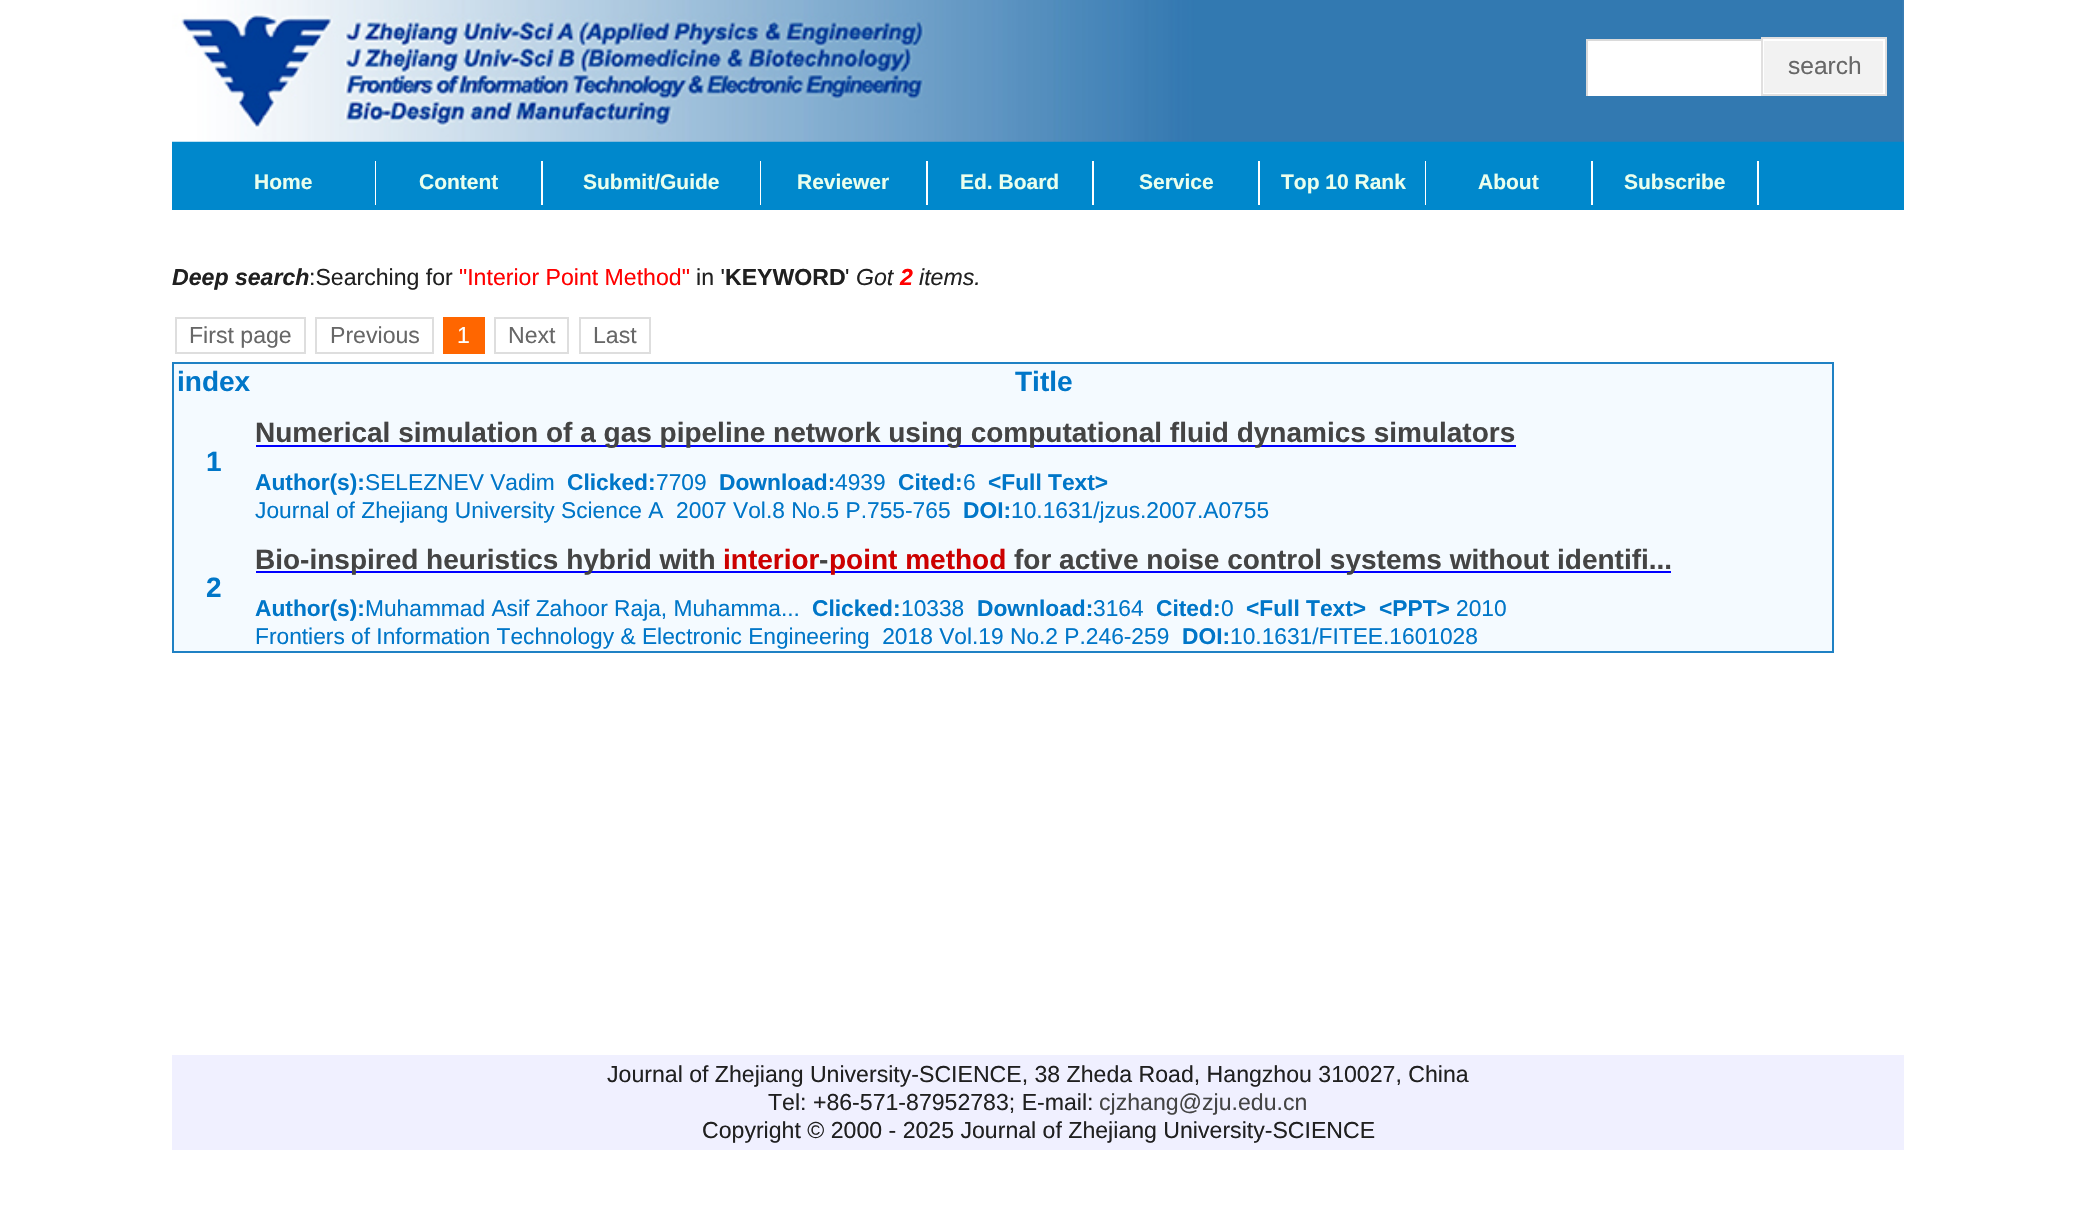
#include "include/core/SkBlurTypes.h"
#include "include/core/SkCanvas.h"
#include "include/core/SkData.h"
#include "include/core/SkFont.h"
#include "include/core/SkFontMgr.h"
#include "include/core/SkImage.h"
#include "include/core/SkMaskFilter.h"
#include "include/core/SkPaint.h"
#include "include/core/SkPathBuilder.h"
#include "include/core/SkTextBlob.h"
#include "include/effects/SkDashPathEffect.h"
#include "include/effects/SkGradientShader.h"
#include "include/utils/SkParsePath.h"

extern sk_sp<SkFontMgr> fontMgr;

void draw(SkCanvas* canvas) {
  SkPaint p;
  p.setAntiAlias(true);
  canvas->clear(SK_ColorWHITE);
  p.setColor(SkColorSetRGB(0, 136, 204));
  canvas->drawRect(SkRect::MakeLTRB(172, 141, 1904, 210), p);
  canvas->drawImageRect(SkImages::DeferredFromEncodedData(SkData::MakeFromFileName("images/1.png")), SkRect::MakeLTRB(172, 0, 1904, 142), SkSamplingOptions());
  p.setColor(SK_ColorWHITE);
  canvas->drawRect(SkRect::MakeLTRB(1588, 41, 1761, 96), p);
  p.setColor(SkColorSetRGB(218, 218, 218));
  canvas->drawRect(SkRect::MakeLTRB(1586, 39, 1762, 41), p);
  canvas->drawRect(SkRect::MakeLTRB(1586, 39, 1588, 96), p);
  p.setColor(SkColorSetRGB(242, 242, 242));
  canvas->drawRect(SkRect::MakeLTRB(1763, 40, 1884, 94), p);
  p.setStyle(SkPaint::kStroke_Style);
  p.setStrokeWidth(2);
  p.setColor(SK_ColorWHITE);
  canvas->drawRect(SkRect::MakeLTRB(1763, 40, 1884, 94), p);
  p.setColor(SkColorSetRGB(225, 224, 224));
  canvas->drawRect(SkRect::MakeLTRB(1762, 38, 1886, 95), p);
  p.setStyle(SkPaint::kFill_Style);
  p.setColor(SK_ColorWHITE);
  canvas->drawRect(SkRect::MakeLTRB(375, 161, 376, 205), p);
  canvas->drawRect(SkRect::MakeLTRB(541, 161, 543, 205), p);
  canvas->drawRect(SkRect::MakeLTRB(760, 161, 761, 205), p);
  canvas->drawRect(SkRect::MakeLTRB(926, 161, 928, 205), p);
  canvas->drawRect(SkRect::MakeLTRB(1092, 161, 1094, 205), p);
  canvas->drawRect(SkRect::MakeLTRB(1258, 161, 1260, 205), p);
  canvas->drawRect(SkRect::MakeLTRB(1425, 161, 1426, 205), p);
  canvas->drawRect(SkRect::MakeLTRB(1591, 161, 1593, 205), p);
  canvas->drawRect(SkRect::MakeLTRB(1757, 161, 1759, 205), p);
  p.setStyle(SkPaint::kStroke_Style);
  p.setColor(SkColorSetRGB(222, 222, 222));
  canvas->drawRect(SkRect::MakeLTRB(176, 318, 305, 353), p);
  canvas->drawRect(SkRect::MakeLTRB(316, 318, 433, 353), p);
  p.setStyle(SkPaint::kFill_Style);
  p.setColor(SkColorSetRGB(255, 102, 0));
  canvas->drawRect(SkRect::MakeLTRB(443, 317, 485, 354), p);
  p.setStyle(SkPaint::kStroke_Style);
  p.setColor(SkColorSetRGB(222, 222, 222));
  canvas->drawRect(SkRect::MakeLTRB(495, 318, 568, 353), p);
  canvas->drawRect(SkRect::MakeLTRB(580, 318, 650, 353), p);
  p.setStyle(SkPaint::kFill_Style);
  p.setColor(SkColorSetRGB(31, 129, 196));
  canvas->drawRect(SkRect::MakeLTRB(172, 362, 1834, 364), p);
  canvas->drawRect(SkRect::MakeLTRB(1832, 362, 1834, 653), p);
  canvas->drawRect(SkRect::MakeLTRB(172, 651, 1834, 653), p);
  canvas->drawRect(SkRect::MakeLTRB(172, 362, 174, 653), p);
  p.setColor(SkColorSetRGB(244, 250, 255));
  canvas->drawRect(SkRect::MakeLTRB(174, 364, 1832, 651), p);
  p.setColor(SkColorSetRGB(0, 0, 255));
  canvas->drawRect(SkRect::MakeLTRB(256, 445, 1516, 447), p);
  canvas->drawRect(SkRect::MakeLTRB(256, 571, 1671, 573), p);
  p.setColor(SkColorSetRGB(240, 240, 255));
  canvas->drawRect(SkRect::MakeLTRB(172, 1055, 1904, 1150), p);
  SkFont font1(fontMgr->matchFamilyStyle("Liberation Sans", SkFontStyle::Normal()), 24.5f);
  font1.setSubpixel(true);
  p.setColor(SkColorSetRGB(103, 103, 103));
  canvas->drawString("search", 1788, 74, font1, p);
  SkFont font2(fontMgr->matchFamilyStyle("Liberation Sans", SkFontStyle::Bold()), 21);
  font2.setSubpixel(true);
  p.setColor(SkColorSetRGB(234, 255, 237));
  canvas->drawString("Home", 254, 189, font2, p);
  canvas->drawString("Content", 419, 189, font2, p);
  canvas->drawString("Submit/Guide", 583, 189, font2, p);
  canvas->drawString("Reviewer", 797, 189, font2, p);
  canvas->drawString("Ed. Board", 960, 189, font2, p);
  canvas->drawString("Service", 1139, 189, font2, p);
  canvas->drawString("Top 10 Rank", 1281, 189, font2, p);
  canvas->drawString("About", 1478, 189, font2, p);
  canvas->drawString("Subscribe", 1624, 189, font2, p);
  SkFont font3(fontMgr->matchFamilyStyle("Liberation Sans", SkFontStyle::BoldItalic()), 23.1f);
  font3.setSubpixel(true);
  p.setColor(SkColorSetRGB(32, 32, 32));
  canvas->drawString("Deep search", 172, 285, font3, p);
  SkFont font4(fontMgr->matchFamilyStyle("Liberation Sans", SkFontStyle::Normal()), 23.1f);
  font4.setSubpixel(true);
  canvas->drawString(":Searching for", 309, 285, font4, p);
  p.setColor(SkColorSetRGB(255, 0, 0));
  canvas->drawString("\"Interior Point Method\"", 459, 285, font4, p);
  p.setColor(SkColorSetRGB(32, 32, 32));
  canvas->drawString("in '", 696, 285, font4, p);
  SkFont font5(fontMgr->matchFamilyStyle("Liberation Sans", SkFontStyle::Bold()), 23.1f);
  font5.setSubpixel(true);
  canvas->drawString("KEYWORD", 725, 285, font5, p);
  canvas->drawString("'", 845, 285, font4, p);
  SkFont font6(fontMgr->matchFamilyStyle("Liberation Sans", SkFontStyle::Italic()), 23.1f);
  font6.setSubpixel(true);
  canvas->drawString("Got", 856, 285, font6, p);
  p.setColor(SkColorSetRGB(255, 0, 0));
  canvas->drawString("2", 900, 285, font3, p);
  p.setColor(SkColorSetRGB(32, 32, 32));
  canvas->drawString("items.", 919, 285, font6, p);
  p.setColor(SkColorSetRGB(103, 103, 103));
  canvas->drawString("First page", 189, 343, font4, p);
  canvas->drawString("Previous", 330, 343, font4, p);
  p.setColor(SK_ColorWHITE);
  canvas->drawString("1", 457, 343, font4, p);
  p.setColor(SkColorSetRGB(103, 103, 103));
  canvas->drawString("Next", 508, 343, font4, p);
  canvas->drawString("Last", 593, 343, font4, p);
  SkFont font7(fontMgr->matchFamilyStyle("Liberation Sans", SkFontStyle::Bold()), 28);
  font7.setSubpixel(true);
  p.setColor(SkColorSetRGB(0, 118, 200));
  canvas->drawString("index", 177, 391, font7, p);
  canvas->drawString("Title", 1015, 391, font7, p);
  canvas->drawString("1", 206, 471, font7, p);
  p.setColor(SkColorSetRGB(68, 68, 68));
  canvas->drawString("Numerical simulation of a gas pipeline network using computational fluid dynamics simulators", 255, 442, font7, p);
  SkFont font8(fontMgr->matchFamilyStyle("Liberation Sans", SkFontStyle::Bold()), 22.75f);
  font8.setSubpixel(true);
  p.setColor(SkColorSetRGB(0, 118, 200));
  canvas->drawString("Author(s):", 255, 490, font8, p);
  SkFont font9(fontMgr->matchFamilyStyle("Liberation Sans", SkFontStyle::Normal()), 22.75f);
  font9.setSubpixel(true);
  canvas->drawString("SELEZNEV Vadim", 365, 490, font9, p);
  canvas->drawString("Clicked:", 567, 490, font8, p);
  canvas->drawString("7709", 656, 490, font9, p);
  canvas->drawString("Download:", 719, 490, font8, p);
  canvas->drawString("4939", 835, 490, font9, p);
  canvas->drawString("Cited:", 898, 490, font8, p);
  canvas->drawString("6", 963, 490, font9, p);
  canvas->drawString("<Full Text>", 988, 490, font8, p);
  canvas->drawString("Journal of Zhejiang University Science A  2007 Vol.8 No.5 P.755-765", 255, 518, font9, p);
  canvas->drawString("DOI:", 963, 518, font8, p);
  canvas->drawString("10.1631/jzus.2007.A0755", 1011, 518, font9, p);
  canvas->drawString("2", 206, 597, font7, p);
  p.setColor(SkColorSetRGB(68, 68, 68));
  canvas->drawString("Bio-inspired heuristics hybrid with", 255, 569, font7, p);
  p.setColor(SkColorSetRGB(204, 0, 0));
  canvas->drawString("interior", 723, 569, font7, p);
  p.setColor(SkColorSetRGB(68, 68, 68));
  canvas->drawString("-", 819, 569, font7, p);
  p.setColor(SkColorSetRGB(204, 0, 0));
  canvas->drawString("point method", 829, 569, font7, p);
  p.setColor(SkColorSetRGB(68, 68, 68));
  canvas->drawString("for active noise control systems without identifi...", 1014, 569, font7, p);
  p.setColor(SkColorSetRGB(0, 118, 200));
  canvas->drawString("Author(s):", 255, 616, font8, p);
  canvas->drawString("Muhammad Asif Zahoor Raja, Muhamma...", 365, 616, font9, p);
  canvas->drawString("Clicked:", 812, 616, font8, p);
  canvas->drawString("10338", 901, 616, font9, p);
  canvas->drawString("Download:", 977, 616, font8, p);
  canvas->drawString("3164", 1093, 616, font9, p);
  canvas->drawString("Cited:", 1156, 616, font8, p);
  canvas->drawString("0", 1221, 616, font9, p);
  canvas->drawString("<Full Text>", 1246, 616, font8, p);
  canvas->drawString("<PPT>", 1379, 616, font8, p);
  canvas->drawString("2010", 1456, 616, font9, p);
  canvas->drawString("Frontiers of Information Technology & Electronic Engineering  2018 Vol.19 No.2 P.246-259", 255, 644, font9, p);
  canvas->drawString("DOI:", 1182, 644, font8, p);
  canvas->drawString("10.1631/FITEE.1601028", 1230, 644, font9, p);
  p.setColor(SkColorSetRGB(32, 32, 32));
  canvas->drawString("Journal of Zhejiang University-SCIENCE, 38 Zheda Road, Hangzhou 310027, China", 607, 1082, font4, p);
  canvas->drawString("Tel: +86-571-87952783; E-mail:", 768, 1110, font4, p);
  p.setColor(SkColorSetRGB(68, 68, 68));
  canvas->drawString("cjzhang@zju.edu.cn", 1099, 1110, font4, p);
  p.setColor(SkColorSetRGB(32, 32, 32));
  canvas->drawString("Copyright © 2000 - 2025 Journal of Zhejiang University-SCIENCE", 702, 1138, font4, p);
}
